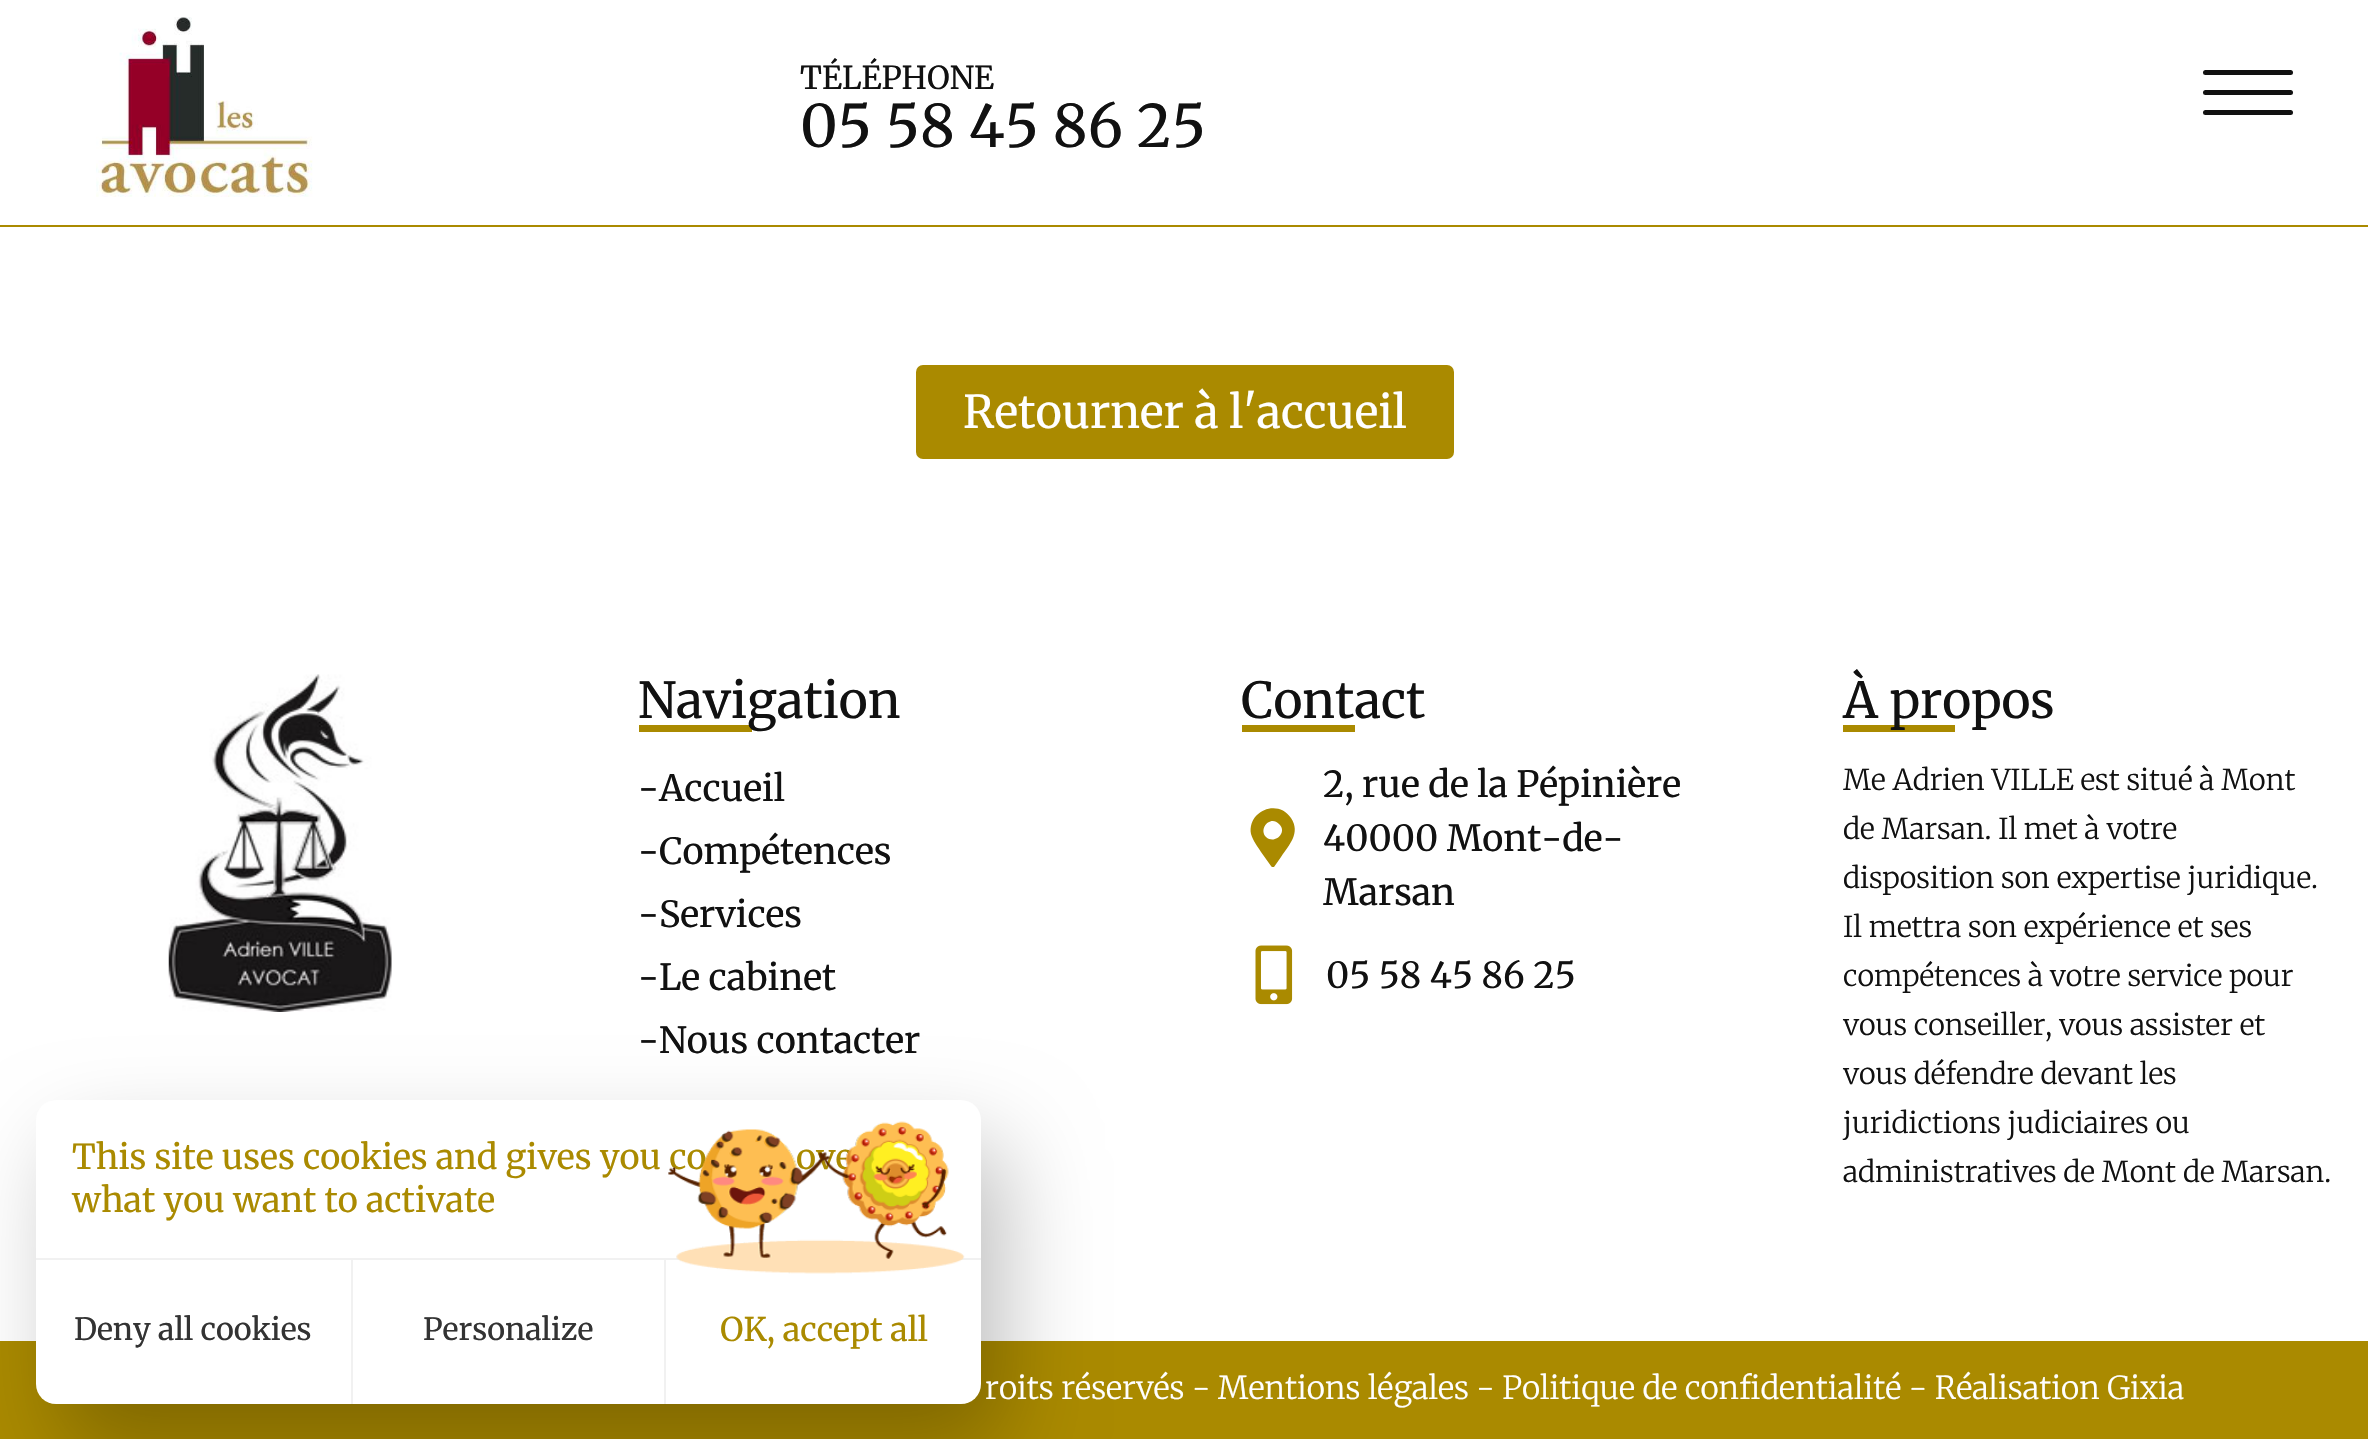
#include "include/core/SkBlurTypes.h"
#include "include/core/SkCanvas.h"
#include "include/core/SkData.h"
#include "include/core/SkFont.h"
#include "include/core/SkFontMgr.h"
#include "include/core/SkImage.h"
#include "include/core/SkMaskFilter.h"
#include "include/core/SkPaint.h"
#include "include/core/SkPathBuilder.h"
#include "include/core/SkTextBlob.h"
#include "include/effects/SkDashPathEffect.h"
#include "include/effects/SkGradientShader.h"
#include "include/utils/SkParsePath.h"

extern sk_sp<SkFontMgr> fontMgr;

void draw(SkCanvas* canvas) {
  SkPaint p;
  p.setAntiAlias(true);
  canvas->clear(SK_ColorWHITE);
  canvas->drawImageRect(SkImages::DeferredFromEncodedData(SkData::MakeFromFileName("images/3.png")), SkRect::MakeLTRB(168, 674, 392, 1012), SkSamplingOptions());
  p.setColor(SkColorSetRGB(170, 138, 0));
  canvas->drawRect(SkRect::MakeLTRB(0, 1341, 2368, 1439), p);
  p.setColor(SkColorSetARGB(64, 0, 0, 0));
  p.setMaskFilter(SkMaskFilter::MakeBlur(kNormal_SkBlurStyle, 46));
  canvas->drawRoundRect(SkRect::MakeLTRB(59, 1145, 1004, 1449), 20, 20, p);
  p.setMaskFilter(nullptr);
  p.setColor(SK_ColorWHITE);
  canvas->drawRoundRect(SkRect::MakeLTRB(36, 1100, 981, 1404), 20, 20, p);
  p.setColor(SkColorSetRGB(241, 241, 241));
  canvas->drawRect(SkRect::MakeLTRB(36, 1258, 981, 1260), p);
  canvas->drawRect(SkRect::MakeLTRB(664, 1260, 666, 1404), p);
  canvas->drawRect(SkRect::MakeLTRB(351, 1260, 353, 1404), p);
  p.setColor(SkColorSetRGB(170, 138, 0));
  canvas->drawRect(SkRect::MakeLTRB(0, 225, 2368, 227), p);
  canvas->drawImageRect(SkImages::DeferredFromEncodedData(SkData::MakeFromFileName("images/2.png")), SkRect::MakeLTRB(96, 17, 313, 197), SkSamplingOptions());
  p.setColor(SkColorSetRGB(17, 17, 17));
  canvas->drawRoundRect(SkRect::MakeLTRB(2203, 70, 2293, 75), 2.5f, 2.5f, p);
  canvas->drawRoundRect(SkRect::MakeLTRB(2203, 90, 2293, 95), 2.5f, 2.5f, p);
  canvas->drawRoundRect(SkRect::MakeLTRB(2203, 110, 2293, 115), 2.5f, 2.5f, p);
  p.setColor(SkColorSetRGB(170, 138, 0));
  canvas->drawRoundRect(SkRect::MakeLTRB(916, 365, 1454, 459), 7, 7, p);
  canvas->drawRect(SkRect::MakeLTRB(639, 725, 752, 732), p);
  canvas->drawRect(SkRect::MakeLTRB(1242, 725, 1355, 732), p);
  canvas->drawPath(SkPathBuilder().moveTo(1271, 866).lineTo(1261, 852).cubicTo(1258, 847, 1253, 841, 1251, 834).cubicTo(1247, 811, 1278, 798, 1291, 818).cubicTo(1301, 833, 1289, 845, 1281, 857).lineTo(1274, 867).cubicTo(1273, 867, 1271, 867, 1271, 866).close().moveTo(1266, 837).cubicTo(1275, 845, 1288, 832, 1279, 824).cubicTo(1271, 815, 1258, 828, 1266, 837).close().detach(), p);
  canvas->drawImageRect(SkImages::DeferredFromEncodedData(SkData::MakeFromFileName("images/4.png")), SkRect::MakeLTRB(1255, 945, 1293, 1005), SkSamplingOptions());
  canvas->drawRect(SkRect::MakeLTRB(1843, 725, 1955, 732), p);
  SkFont font1(fontMgr->matchFamilyStyle("Merriweather", SkFontStyle::Normal()), 34.25f);
  font1.setSubpixel(true);
  canvas->drawString("This site uses cookies and gives you co", 72, 1169, font1, p);
  canvas->drawString("ove", 796, 1169, font1, p);
  canvas->drawImageRect(SkImages::DeferredFromEncodedData(SkData::MakeFromFileName("images/1.png")), SkRect::MakeLTRB(668, 1121, 965, 1274), SkSamplingOptions());
  canvas->drawString("what you want to activate", 72, 1212, font1, p);
  SkFont font2(fontMgr->matchFamilyStyle("Merriweather", SkFontStyle::Normal()), 30.5f);
  font2.setSubpixel(true);
  p.setColor(SkColorSetRGB(51, 51, 51));
  canvas->drawString("Deny all cookies", 74, 1340, font2, p);
  canvas->drawString("Personalize", 423, 1340, font2, p);
  SkFont font3(fontMgr->matchFamilyStyle("Merriweather", SkFontStyle::Normal()), 32.5f);
  font3.setSubpixel(true);
  p.setColor(SkColorSetRGB(170, 138, 0));
  canvas->drawString("OK, accept all", 720, 1341, font3, p);
  SkFont font4(fontMgr->matchFamilyStyle("Merriweather", SkFontStyle::Normal()), 31.5f);
  font4.setSubpixel(true);
  p.setColor(SkColorSetRGB(17, 17, 17));
  canvas->drawString("TÉLÉPHONE", 800, 89, font4, p);
  SkFont font5(fontMgr->matchFamilyStyle("Merriweather", SkFontStyle::Normal()), 58.5f);
  font5.setSubpixel(true);
  canvas->drawString("05 58 45 86 25", 800, 147, font5, p);
  SkFont font6(fontMgr->matchFamilyStyle("Merriweather", SkFontStyle::Normal()), 45);
  font6.setSubpixel(true);
  p.setColor(SK_ColorWHITE);
  canvas->drawString("Retourner à l'accueil", 963, 428, font6, p);
  SkFont font7(fontMgr->matchFamilyStyle("Merriweather", SkFontStyle::Normal()), 49.5f);
  font7.setSubpixel(true);
  p.setColor(SkColorSetRGB(17, 17, 17));
  canvas->drawString("Navigation", 638, 718, font7, p);
  SkFont font8(fontMgr->matchFamilyStyle("Merriweather", SkFontStyle::Normal()), 36);
  font8.setSubpixel(true);
  canvas->drawString("-Accueil", 638, 801, font8, p);
  canvas->drawString("-Compétences", 638, 864, font8, p);
  canvas->drawString("-Services", 638, 927, font8, p);
  canvas->drawString("-Le cabinet", 638, 990, font8, p);
  canvas->drawString("-Nous contacter", 638, 1053, font8, p);
  canvas->drawString("Contact", 1241, 718, font7, p);
  canvas->drawString("2, rue de la Pépinière", 1323, 797, font8, p);
  canvas->drawString("40000 Mont-de-", 1323, 851, font8, p);
  canvas->drawString("Marsan", 1323, 905, font8, p);
  canvas->drawString("05 58 45 86 25", 1326, 988, font8, p);
  canvas->drawString("À propos", 1843, 718, font7, p);
  SkFont font9(fontMgr->matchFamilyStyle("Merriweather", SkFontStyle(300, SkFontStyle::kNormal_Width, SkFontStyle::kUpright_Slant)), 28.75f);
  font9.setSubpixel(true);
  canvas->drawString("Me Adrien VILLE est situé à Mont", 1843, 790, font9, p);
  canvas->drawString("de Marsan. Il met à votre", 1843, 839, font9, p);
  canvas->drawString("disposition son expertise juridique.", 1843, 888, font9, p);
  canvas->drawString("Il mettra son expérience et ses", 1843, 937, font9, p);
  canvas->drawString("compétences à votre service pour", 1843, 986, font9, p);
  canvas->drawString("vous conseiller, vous assister et", 1843, 1035, font9, p);
  canvas->drawString("vous défendre devant les", 1843, 1084, font9, p);
  canvas->drawString("juridictions judiciaires ou", 1843, 1133, font9, p);
  canvas->drawString("administratives de Mont de Marsan.", 1843, 1182, font9, p);
  SkFont font10(fontMgr->matchFamilyStyle("Merriweather", SkFontStyle(300, SkFontStyle::kNormal_Width, SkFontStyle::kUpright_Slant)), 31.5f);
  font10.setSubpixel(true);
  p.setColor(SK_ColorWHITE);
  canvas->drawString("roits réservés - Mentions légales - Politique de confidentialité - Réalisation Gixia", 985, 1399, font10, p);
}
